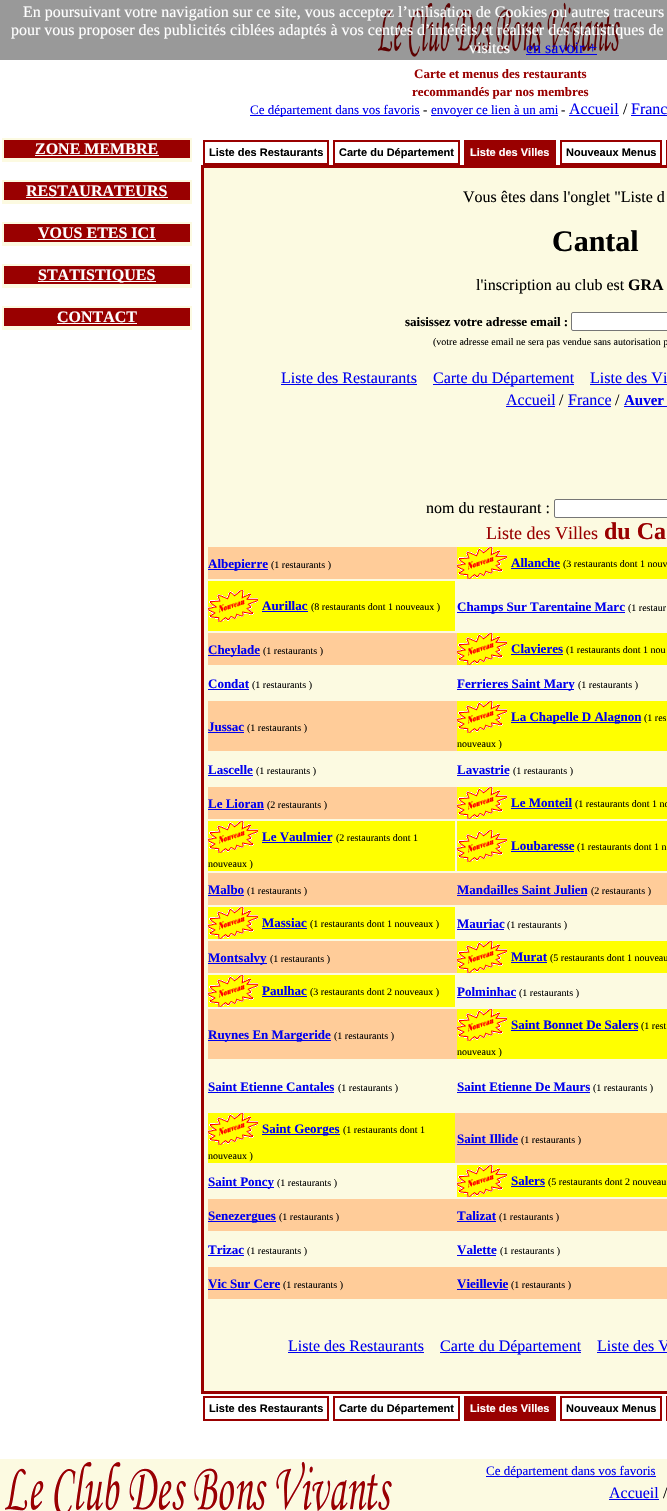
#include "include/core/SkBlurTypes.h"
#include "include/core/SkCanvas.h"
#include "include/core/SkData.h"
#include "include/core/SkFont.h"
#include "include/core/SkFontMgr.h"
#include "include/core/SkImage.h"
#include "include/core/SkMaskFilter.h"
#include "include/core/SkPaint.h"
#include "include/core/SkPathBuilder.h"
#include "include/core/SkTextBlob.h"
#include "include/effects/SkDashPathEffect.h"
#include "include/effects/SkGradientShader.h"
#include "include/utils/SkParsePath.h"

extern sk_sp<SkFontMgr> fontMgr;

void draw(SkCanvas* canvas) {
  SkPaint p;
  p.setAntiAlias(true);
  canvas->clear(SK_ColorWHITE);
  p.setColor(SkColorSetRGB(153, 153, 153));
  canvas->drawRect(SkRect::MakeLTRB(0, 0, 667, 60), p);
  canvas->drawImageRect(SkImages::DeferredFromEncodedData(SkData::MakeFromFileName("images/1.png")), SkRect::MakeLTRB(378, 2, 620, 57), SkSamplingOptions());
  p.setColor(SkColorSetRGB(0, 0, 238));
  canvas->drawRect(SkRect::MakeLTRB(526, 54, 597, 55), p);
  canvas->drawRect(SkRect::MakeLTRB(250, 115, 420, 116), p);
  canvas->drawRect(SkRect::MakeLTRB(431, 115, 558, 116), p);
  canvas->drawRect(SkRect::MakeLTRB(569, 115, 619, 116), p);
  canvas->drawRect(SkRect::MakeLTRB(631, 115, 667, 116), p);
  p.setColor(SkColorSetRGB(252, 250, 225));
  canvas->drawRect(SkRect::MakeLTRB(2, 138, 192, 162), p);
  p.setColor(SkColorSetRGB(153, 0, 0));
  canvas->drawRect(SkRect::MakeLTRB(4, 140, 190, 158), p);
  p.setColor(SK_ColorWHITE);
  canvas->drawRect(SkRect::MakeLTRB(35, 155, 159, 156), p);
  p.setColor(SkColorSetRGB(252, 250, 225));
  canvas->drawRect(SkRect::MakeLTRB(2, 180, 192, 204), p);
  p.setColor(SkColorSetRGB(153, 0, 0));
  canvas->drawRect(SkRect::MakeLTRB(4, 182, 190, 200), p);
  p.setColor(SK_ColorWHITE);
  canvas->drawRect(SkRect::MakeLTRB(26, 197, 168, 198), p);
  p.setColor(SkColorSetRGB(252, 250, 225));
  canvas->drawRect(SkRect::MakeLTRB(2, 222, 192, 246), p);
  p.setColor(SkColorSetRGB(153, 0, 0));
  canvas->drawRect(SkRect::MakeLTRB(4, 224, 190, 242), p);
  p.setColor(SK_ColorWHITE);
  canvas->drawRect(SkRect::MakeLTRB(38, 239, 156, 240), p);
  p.setColor(SkColorSetRGB(252, 250, 225));
  canvas->drawRect(SkRect::MakeLTRB(2, 264, 192, 288), p);
  p.setColor(SkColorSetRGB(153, 0, 0));
  canvas->drawRect(SkRect::MakeLTRB(4, 266, 190, 284), p);
  p.setColor(SK_ColorWHITE);
  canvas->drawRect(SkRect::MakeLTRB(38, 281, 156, 282), p);
  p.setColor(SkColorSetRGB(252, 250, 225));
  canvas->drawRect(SkRect::MakeLTRB(2, 306, 192, 330), p);
  p.setColor(SkColorSetRGB(153, 0, 0));
  canvas->drawRect(SkRect::MakeLTRB(4, 308, 190, 326), p);
  p.setColor(SK_ColorWHITE);
  canvas->drawRect(SkRect::MakeLTRB(57, 323, 137, 324), p);
  p.setStyle(SkPaint::kStroke_Style);
  p.setStrokeWidth(2);
  p.setColor(SkColorSetRGB(153, 0, 0));
  canvas->drawRect(SkRect::MakeLTRB(204, 141, 328, 164), p);
  canvas->drawRect(SkRect::MakeLTRB(334, 141, 459, 164), p);
  p.setStyle(SkPaint::kFill_Style);
  canvas->drawRect(SkRect::MakeLTRB(464, 140, 556, 165), p);
  p.setStyle(SkPaint::kStroke_Style);
  canvas->drawRect(SkRect::MakeLTRB(561, 141, 661, 164), p);
  canvas->drawRect(SkRect::MakeLTRB(667, 141, 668, 164), p);
  p.setStyle(SkPaint::kFill_Style);
  p.setColor(SkColorSetRGB(252, 250, 225));
  canvas->drawRect(SkRect::MakeLTRB(202.5f, 166.5f, 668.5f, 1392.5f), p);
  p.setStyle(SkPaint::kStroke_Style);
  p.setStrokeWidth(3);
  p.setColor(SkColorSetRGB(153, 0, 0));
  canvas->drawRect(SkRect::MakeLTRB(202.5f, 166.5f, 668.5f, 1392.5f), p);
  p.setStyle(SkPaint::kFill_Style);
  p.setColor(SK_ColorWHITE);
  canvas->drawRoundRect(SkRect::MakeLTRB(571.5f, 312.5f, 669.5f, 330.5f), 1.5f, 1.5f, p);
  p.setStyle(SkPaint::kStroke_Style);
  p.setStrokeWidth(1);
  p.setColor(SkColorSetRGB(118, 118, 118));
  canvas->drawRoundRect(SkRect::MakeLTRB(571.5f, 312.5f, 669.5f, 330.5f), 1.5f, 1.5f, p);
  p.setStyle(SkPaint::kFill_Style);
  p.setColor(SkColorSetRGB(0, 0, 238));
  canvas->drawRect(SkRect::MakeLTRB(281, 384, 417, 385), p);
  canvas->drawRect(SkRect::MakeLTRB(433, 384, 574, 385), p);
  canvas->drawRect(SkRect::MakeLTRB(590, 384, 667, 385), p);
  canvas->drawRect(SkRect::MakeLTRB(506, 406, 555, 407), p);
  canvas->drawRect(SkRect::MakeLTRB(568, 406, 611, 407), p);
  canvas->drawRect(SkRect::MakeLTRB(624, 406, 667, 407), p);
  p.setColor(SK_ColorWHITE);
  canvas->drawRoundRect(SkRect::MakeLTRB(554.5f, 499.5f, 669.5f, 517.5f), 1.5f, 1.5f, p);
  p.setStyle(SkPaint::kStroke_Style);
  p.setColor(SkColorSetRGB(118, 118, 118));
  canvas->drawRoundRect(SkRect::MakeLTRB(554.5f, 499.5f, 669.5f, 517.5f), 1.5f, 1.5f, p);
  p.setStyle(SkPaint::kFill_Style);
  p.setColor(SkColorSetRGB(255, 204, 153));
  canvas->drawRect(SkRect::MakeLTRB(208, 547, 457, 579), p);
  p.setColor(SkColorSetRGB(0, 0, 238));
  canvas->drawRect(SkRect::MakeLTRB(208, 569, 268, 570), p);
  p.setColor(SkColorSetRGB(255, 255, 0));
  canvas->drawRect(SkRect::MakeLTRB(457, 547, 667, 579), p);
  canvas->drawImageRect(SkImages::DeferredFromEncodedData(SkData::MakeFromFileName("images/2.png")), SkRect::MakeLTRB(457, 547, 507, 579), SkSamplingOptions());
  p.setColor(SkColorSetRGB(0, 0, 238));
  canvas->drawRect(SkRect::MakeLTRB(511, 568, 560, 569), p);
  p.setColor(SkColorSetRGB(255, 255, 0));
  canvas->drawRect(SkRect::MakeLTRB(208, 581, 455, 631), p);
  canvas->drawImageRect(SkImages::DeferredFromEncodedData(SkData::MakeFromFileName("images/2.png")), SkRect::MakeLTRB(208, 590, 258, 622), SkSamplingOptions());
  p.setColor(SkColorSetRGB(0, 0, 238));
  canvas->drawRect(SkRect::MakeLTRB(262, 611, 308, 612), p);
  canvas->drawRect(SkRect::MakeLTRB(457, 612, 625, 613), p);
  p.setColor(SkColorSetRGB(255, 204, 153));
  canvas->drawRect(SkRect::MakeLTRB(208, 633, 457, 665), p);
  p.setColor(SkColorSetRGB(0, 0, 238));
  canvas->drawRect(SkRect::MakeLTRB(208, 655, 260, 656), p);
  p.setColor(SkColorSetRGB(255, 255, 0));
  canvas->drawRect(SkRect::MakeLTRB(457, 633, 667, 665), p);
  canvas->drawImageRect(SkImages::DeferredFromEncodedData(SkData::MakeFromFileName("images/2.png")), SkRect::MakeLTRB(457, 633, 507, 665), SkSamplingOptions());
  p.setColor(SkColorSetRGB(0, 0, 238));
  canvas->drawRect(SkRect::MakeLTRB(511, 654, 563, 655), p);
  canvas->drawRect(SkRect::MakeLTRB(208, 689, 249, 690), p);
  canvas->drawRect(SkRect::MakeLTRB(457, 689, 574, 690), p);
  p.setColor(SkColorSetRGB(255, 204, 153));
  canvas->drawRect(SkRect::MakeLTRB(208, 701, 457, 751), p);
  p.setColor(SkColorSetRGB(0, 0, 238));
  canvas->drawRect(SkRect::MakeLTRB(208, 732, 244, 733), p);
  p.setColor(SkColorSetRGB(255, 255, 0));
  canvas->drawRect(SkRect::MakeLTRB(457, 701, 667, 751), p);
  canvas->drawImageRect(SkImages::DeferredFromEncodedData(SkData::MakeFromFileName("images/2.png")), SkRect::MakeLTRB(457, 701, 507, 733), SkSamplingOptions());
  p.setColor(SkColorSetRGB(0, 0, 238));
  canvas->drawRect(SkRect::MakeLTRB(511, 722, 641, 723), p);
  canvas->drawRect(SkRect::MakeLTRB(208, 775, 253, 776), p);
  canvas->drawRect(SkRect::MakeLTRB(457, 775, 509, 776), p);
  p.setColor(SkColorSetRGB(255, 204, 153));
  canvas->drawRect(SkRect::MakeLTRB(208, 787, 457, 819), p);
  p.setColor(SkColorSetRGB(0, 0, 238));
  canvas->drawRect(SkRect::MakeLTRB(208, 809, 264, 810), p);
  p.setColor(SkColorSetRGB(255, 255, 0));
  canvas->drawRect(SkRect::MakeLTRB(457, 787, 667, 819), p);
  canvas->drawImageRect(SkImages::DeferredFromEncodedData(SkData::MakeFromFileName("images/2.png")), SkRect::MakeLTRB(457, 787, 507, 819), SkSamplingOptions());
  p.setColor(SkColorSetRGB(0, 0, 238));
  canvas->drawRect(SkRect::MakeLTRB(511, 808, 572, 809), p);
  p.setColor(SkColorSetRGB(255, 255, 0));
  canvas->drawRect(SkRect::MakeLTRB(208, 821, 455, 871), p);
  canvas->drawImageRect(SkImages::DeferredFromEncodedData(SkData::MakeFromFileName("images/2.png")), SkRect::MakeLTRB(208, 821, 258, 853), SkSamplingOptions());
  p.setColor(SkColorSetRGB(0, 0, 238));
  canvas->drawRect(SkRect::MakeLTRB(262, 842, 332, 843), p);
  p.setColor(SkColorSetRGB(255, 255, 0));
  canvas->drawRect(SkRect::MakeLTRB(457, 821, 667, 871), p);
  canvas->drawImageRect(SkImages::DeferredFromEncodedData(SkData::MakeFromFileName("images/2.png")), SkRect::MakeLTRB(457, 830, 507, 862), SkSamplingOptions());
  p.setColor(SkColorSetRGB(0, 0, 238));
  canvas->drawRect(SkRect::MakeLTRB(511, 851, 574, 852), p);
  p.setColor(SkColorSetRGB(255, 204, 153));
  canvas->drawRect(SkRect::MakeLTRB(208, 873, 667, 905), p);
  p.setColor(SkColorSetRGB(0, 0, 238));
  canvas->drawRect(SkRect::MakeLTRB(208, 895, 244, 896), p);
  canvas->drawRect(SkRect::MakeLTRB(457, 895, 587, 896), p);
  p.setColor(SkColorSetRGB(255, 255, 0));
  canvas->drawRect(SkRect::MakeLTRB(208, 907, 455, 939), p);
  canvas->drawImageRect(SkImages::DeferredFromEncodedData(SkData::MakeFromFileName("images/2.png")), SkRect::MakeLTRB(208, 907, 258, 939), SkSamplingOptions());
  p.setColor(SkColorSetRGB(0, 0, 238));
  canvas->drawRect(SkRect::MakeLTRB(262, 928, 307, 929), p);
  canvas->drawRect(SkRect::MakeLTRB(457, 929, 504, 930), p);
  p.setColor(SkColorSetRGB(255, 204, 153));
  canvas->drawRect(SkRect::MakeLTRB(208, 941, 457, 973), p);
  p.setColor(SkColorSetRGB(0, 0, 238));
  canvas->drawRect(SkRect::MakeLTRB(208, 963, 267, 964), p);
  p.setColor(SkColorSetRGB(255, 255, 0));
  canvas->drawRect(SkRect::MakeLTRB(457, 941, 667, 973), p);
  canvas->drawImageRect(SkImages::DeferredFromEncodedData(SkData::MakeFromFileName("images/2.png")), SkRect::MakeLTRB(457, 941, 507, 973), SkSamplingOptions());
  p.setColor(SkColorSetRGB(0, 0, 238));
  canvas->drawRect(SkRect::MakeLTRB(511, 962, 547, 963), p);
  p.setColor(SkColorSetRGB(255, 255, 0));
  canvas->drawRect(SkRect::MakeLTRB(208, 975, 455, 1007), p);
  canvas->drawImageRect(SkImages::DeferredFromEncodedData(SkData::MakeFromFileName("images/2.png")), SkRect::MakeLTRB(208, 975, 258, 1007), SkSamplingOptions());
  p.setColor(SkColorSetRGB(0, 0, 238));
  canvas->drawRect(SkRect::MakeLTRB(262, 996, 307, 997), p);
  canvas->drawRect(SkRect::MakeLTRB(457, 997, 516, 998), p);
  p.setColor(SkColorSetRGB(255, 204, 153));
  canvas->drawRect(SkRect::MakeLTRB(208, 1009, 457, 1059), p);
  p.setColor(SkColorSetRGB(0, 0, 238));
  canvas->drawRect(SkRect::MakeLTRB(208, 1040, 331, 1041), p);
  p.setColor(SkColorSetRGB(255, 255, 0));
  canvas->drawRect(SkRect::MakeLTRB(457, 1009, 667, 1059), p);
  canvas->drawImageRect(SkImages::DeferredFromEncodedData(SkData::MakeFromFileName("images/2.png")), SkRect::MakeLTRB(457, 1009, 507, 1041), SkSamplingOptions());
  p.setColor(SkColorSetRGB(0, 0, 238));
  canvas->drawRect(SkRect::MakeLTRB(511, 1030, 638, 1031), p);
  canvas->drawRect(SkRect::MakeLTRB(208, 1092, 334, 1093), p);
  canvas->drawRect(SkRect::MakeLTRB(457, 1092, 590, 1093), p);
  p.setColor(SkColorSetRGB(255, 204, 153));
  canvas->drawRect(SkRect::MakeLTRB(455, 1113, 667, 1163), p);
  p.setColor(SkColorSetRGB(255, 255, 0));
  canvas->drawRect(SkRect::MakeLTRB(208, 1113, 455, 1163), p);
  canvas->drawImageRect(SkImages::DeferredFromEncodedData(SkData::MakeFromFileName("images/2.png")), SkRect::MakeLTRB(208, 1113, 258, 1145), SkSamplingOptions());
  p.setColor(SkColorSetRGB(0, 0, 238));
  canvas->drawRect(SkRect::MakeLTRB(262, 1134, 340, 1135), p);
  canvas->drawRect(SkRect::MakeLTRB(457, 1144, 518, 1145), p);
  canvas->drawRect(SkRect::MakeLTRB(208, 1187, 274, 1188), p);
  p.setColor(SkColorSetRGB(255, 255, 0));
  canvas->drawRect(SkRect::MakeLTRB(457, 1165, 667, 1197), p);
  canvas->drawImageRect(SkImages::DeferredFromEncodedData(SkData::MakeFromFileName("images/2.png")), SkRect::MakeLTRB(457, 1165, 507, 1197), SkSamplingOptions());
  p.setColor(SkColorSetRGB(0, 0, 238));
  canvas->drawRect(SkRect::MakeLTRB(511, 1186, 545, 1187), p);
  p.setColor(SkColorSetRGB(255, 204, 153));
  canvas->drawRect(SkRect::MakeLTRB(208, 1199, 667, 1231), p);
  p.setColor(SkColorSetRGB(0, 0, 238));
  canvas->drawRect(SkRect::MakeLTRB(208, 1221, 276, 1222), p);
  canvas->drawRect(SkRect::MakeLTRB(457, 1221, 496, 1222), p);
  canvas->drawRect(SkRect::MakeLTRB(208, 1255, 244, 1256), p);
  canvas->drawRect(SkRect::MakeLTRB(457, 1255, 496, 1256), p);
  p.setColor(SkColorSetRGB(255, 204, 153));
  canvas->drawRect(SkRect::MakeLTRB(208, 1267, 667, 1299), p);
  p.setColor(SkColorSetRGB(0, 0, 238));
  canvas->drawRect(SkRect::MakeLTRB(208, 1289, 280, 1290), p);
  canvas->drawRect(SkRect::MakeLTRB(457, 1289, 508, 1290), p);
  canvas->drawRect(SkRect::MakeLTRB(288, 1352, 424, 1353), p);
  canvas->drawRect(SkRect::MakeLTRB(440, 1352, 581, 1353), p);
  canvas->drawRect(SkRect::MakeLTRB(597, 1352, 667, 1353), p);
  p.setStyle(SkPaint::kStroke_Style);
  p.setStrokeWidth(2);
  p.setColor(SkColorSetRGB(153, 0, 0));
  canvas->drawRect(SkRect::MakeLTRB(204, 1397, 328, 1420), p);
  canvas->drawRect(SkRect::MakeLTRB(334, 1397, 459, 1420), p);
  p.setStyle(SkPaint::kFill_Style);
  canvas->drawRect(SkRect::MakeLTRB(464, 1396, 556, 1421), p);
  p.setStyle(SkPaint::kStroke_Style);
  canvas->drawRect(SkRect::MakeLTRB(561, 1397, 661, 1420), p);
  canvas->drawRect(SkRect::MakeLTRB(667, 1397, 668, 1420), p);
  p.setStyle(SkPaint::kFill_Style);
  p.setColor(SkColorSetRGB(252, 250, 225));
  canvas->drawRect(SkRect::MakeLTRB(0, 1459, 667, 1511), p);
  canvas->drawImageRect(SkImages::DeferredFromEncodedData(SkData::MakeFromFileName("images/3.png")), SkRect::MakeLTRB(4, 1461, 392, 1511), SkSamplingOptions());
  p.setColor(SkColorSetRGB(0, 0, 238));
  canvas->drawRect(SkRect::MakeLTRB(486, 1476, 656, 1477), p);
  canvas->drawRect(SkRect::MakeLTRB(609, 1499, 659, 1500), p);
  SkFont font1(fontMgr->matchFamilyStyle("Liberation Serif", SkFontStyle::Normal()), 16);
  font1.setSubpixel(true);
  p.setColor(SK_ColorWHITE);
  canvas->drawString("En poursuivant votre navigation sur ce site, vous acceptez l’utilisation de Cookies ou autres traceurs", 23, 17, font1, p);
  canvas->drawString("pour vous proposer des publicités ciblées adaptés à vos centres d’intérêts et réaliser des statistiques de", 11, 35, font1, p);
  canvas->drawString("visites", 469, 53, font1, p);
  p.setColor(SkColorSetRGB(0, 0, 238));
  canvas->drawString("en savoir +", 526, 53, font1, p);
  SkFont font2(fontMgr->matchFamilyStyle("Liberation Serif", SkFontStyle::Bold()), 13);
  font2.setSubpixel(true);
  p.setColor(SkColorSetRGB(153, 0, 0));
  canvas->drawString("Carte et menus des restaurants", 414, 78, font2, p);
  canvas->drawString("recommandés par nos membres", 412, 96, font2, p);
  SkFont font3(fontMgr->matchFamilyStyle("Liberation Serif", SkFontStyle::Normal()), 13);
  font3.setSubpixel(true);
  p.setColor(SkColorSetRGB(0, 0, 238));
  canvas->drawString("Ce département dans vos favoris", 250, 114, font3, p);
  p.setColor(SK_ColorBLACK);
  canvas->drawString("-", 423, 114, font3, p);
  p.setColor(SkColorSetRGB(0, 0, 238));
  canvas->drawString("envoyer ce lien à un ami", 431, 114, font3, p);
  p.setColor(SK_ColorBLACK);
  canvas->drawString("-", 561, 114, font3, p);
  p.setColor(SkColorSetRGB(0, 0, 238));
  canvas->drawString("Accueil", 569, 114, font1, p);
  p.setColor(SK_ColorBLACK);
  canvas->drawString("/", 623, 114, font1, p);
  p.setColor(SkColorSetRGB(0, 0, 238));
  canvas->drawString("Franc", 631, 114, font1, p);
  SkFont font4(fontMgr->matchFamilyStyle("Liberation Serif", SkFontStyle::Bold()), 16);
  font4.setSubpixel(true);
  p.setColor(SK_ColorWHITE);
  canvas->drawString("ZONE MEMBRE", 35, 154, font4, p);
  canvas->drawString("RESTAURATEURS", 26, 196, font4, p);
  canvas->drawString("VOUS ETES ICI", 38, 238, font4, p);
  canvas->drawString("STATISTIQUES", 38, 280, font4, p);
  canvas->drawString("CONTACT", 57, 322, font4, p);
  SkFont font5(fontMgr->matchFamilyStyle("Liberation Sans", SkFontStyle::Bold()), 11);
  font5.setSubpixel(true);
  p.setColor(SK_ColorBLACK);
  canvas->drawString("Liste des Restaurants", 209, 156, font5, p);
  canvas->drawString("Carte du Département", 339, 156, font5, p);
  p.setColor(SK_ColorWHITE);
  canvas->drawString("Liste des Villes", 470, 156, font5, p);
  p.setColor(SK_ColorBLACK);
  canvas->drawString("Nouveaux Menus", 566, 156, font5, p);
  canvas->drawString("Vous êtes dans l'onglet \"Liste d", 463, 202, font1, p);
  SkFont font6(fontMgr->matchFamilyStyle("Liberation Serif", SkFontStyle::Bold()), 30);
  font6.setSubpixel(true);
  canvas->drawString("Cantal", 552, 251, font6, p);
  canvas->drawString("l'inscription au club est", 476, 290, font1, p);
  canvas->drawString("GRA", 628, 290, font4, p);
  canvas->drawString("saisissez votre adresse email :", 405, 326, font2, p);
  SkFont font7(fontMgr->matchFamilyStyle("Liberation Serif", SkFontStyle::Normal()), 10);
  font7.setSubpixel(true);
  canvas->drawString("(votre adresse email ne sera pas vendue sans autorisation p", 433, 345, font7, p);
  p.setColor(SkColorSetRGB(0, 0, 238));
  canvas->drawString("Liste des Restaurants", 281, 383, font1, p);
  canvas->drawString("Carte du Département", 433, 383, font1, p);
  canvas->drawString("Liste des Vi", 590, 383, font1, p);
  canvas->drawString("Accueil", 506, 405, font1, p);
  p.setColor(SK_ColorBLACK);
  canvas->drawString("/", 559, 405, font1, p);
  p.setColor(SkColorSetRGB(0, 0, 238));
  canvas->drawString("France", 568, 405, font1, p);
  p.setColor(SK_ColorBLACK);
  canvas->drawString("/", 615, 405, font1, p);
  SkFont font8(fontMgr->matchFamilyStyle("Liberation Serif", SkFontStyle::Bold()), 15);
  font8.setSubpixel(true);
  p.setColor(SkColorSetRGB(0, 0, 238));
  canvas->drawString("Auver", 624, 405, font8, p);
  p.setColor(SK_ColorBLACK);
  canvas->drawString("nom du restaurant :", 426, 513, font1, p);
  SkFont font9(fontMgr->matchFamilyStyle("Liberation Serif", SkFontStyle::Normal()), 18);
  font9.setSubpixel(true);
  p.setColor(SkColorSetRGB(153, 0, 0));
  canvas->drawString("Liste des Villes", 486, 539, font9, p);
  SkFont font10(fontMgr->matchFamilyStyle("Liberation Serif", SkFontStyle::Bold()), 24);
  font10.setSubpixel(true);
  canvas->drawString("du Ca", 604, 539, font10, p);
  p.setColor(SkColorSetRGB(0, 0, 238));
  canvas->drawString("Albepierre", 208, 568, font2, p);
  p.setColor(SK_ColorBLACK);
  canvas->drawString("(1 restaurants )", 271, 568, font7, p);
  p.setColor(SkColorSetRGB(0, 0, 238));
  canvas->drawString("Allanche", 511, 567, font2, p);
  p.setColor(SK_ColorBLACK);
  canvas->drawString("(3 restaurants dont 1 nouv", 563, 567, font7, p);
  p.setColor(SkColorSetRGB(0, 0, 238));
  canvas->drawString("Aurillac", 262, 610, font2, p);
  p.setColor(SK_ColorBLACK);
  canvas->drawString("(8 restaurants dont 1 nouveaux )", 311, 610, font7, p);
  p.setColor(SkColorSetRGB(0, 0, 238));
  canvas->drawString("Champs Sur Tarentaine Marc", 457, 611, font2, p);
  p.setColor(SK_ColorBLACK);
  canvas->drawString("(1 restaur", 628, 611, font7, p);
  p.setColor(SkColorSetRGB(0, 0, 238));
  canvas->drawString("Cheylade", 208, 654, font2, p);
  p.setColor(SK_ColorBLACK);
  canvas->drawString("(1 restaurants )", 263, 654, font7, p);
  p.setColor(SkColorSetRGB(0, 0, 238));
  canvas->drawString("Clavieres", 511, 653, font2, p);
  p.setColor(SK_ColorBLACK);
  canvas->drawString("(1 restaurants dont 1 nou", 566, 653, font7, p);
  p.setColor(SkColorSetRGB(0, 0, 238));
  canvas->drawString("Condat", 208, 688, font2, p);
  p.setColor(SK_ColorBLACK);
  canvas->drawString("(1 restaurants )", 252, 688, font7, p);
  p.setColor(SkColorSetRGB(0, 0, 238));
  canvas->drawString("Ferrieres Saint Mary", 457, 688, font2, p);
  p.setColor(SK_ColorBLACK);
  canvas->drawString("(1 restaurants )", 578, 688, font7, p);
  p.setColor(SkColorSetRGB(0, 0, 238));
  canvas->drawString("Jussac", 208, 731, font2, p);
  p.setColor(SK_ColorBLACK);
  canvas->drawString("(1 restaurants )", 247, 731, font7, p);
  p.setColor(SkColorSetRGB(0, 0, 238));
  canvas->drawString("La Chapelle D Alagnon", 511, 721, font2, p);
  p.setColor(SK_ColorBLACK);
  canvas->drawString("(1 res", 644, 721, font7, p);
  canvas->drawString("nouveaux )", 457, 747, font7, p);
  p.setColor(SkColorSetRGB(0, 0, 238));
  canvas->drawString("Lascelle", 208, 774, font2, p);
  p.setColor(SK_ColorBLACK);
  canvas->drawString("(1 restaurants )", 256, 774, font7, p);
  p.setColor(SkColorSetRGB(0, 0, 238));
  canvas->drawString("Lavastrie", 457, 774, font2, p);
  p.setColor(SK_ColorBLACK);
  canvas->drawString("(1 restaurants )", 513, 774, font7, p);
  p.setColor(SkColorSetRGB(0, 0, 238));
  canvas->drawString("Le Lioran", 208, 808, font2, p);
  p.setColor(SK_ColorBLACK);
  canvas->drawString("(2 restaurants )", 267, 808, font7, p);
  p.setColor(SkColorSetRGB(0, 0, 238));
  canvas->drawString("Le Monteil", 511, 807, font2, p);
  p.setColor(SK_ColorBLACK);
  canvas->drawString("(1 restaurants dont 1 no", 575, 807, font7, p);
  p.setColor(SkColorSetRGB(0, 0, 238));
  canvas->drawString("Le Vaulmier", 262, 841, font2, p);
  p.setColor(SK_ColorBLACK);
  canvas->drawString("(2 restaurants dont 1", 336, 841, font7, p);
  canvas->drawString("nouveaux )", 208, 867, font7, p);
  p.setColor(SkColorSetRGB(0, 0, 238));
  canvas->drawString("Loubaresse", 511, 850, font2, p);
  p.setColor(SK_ColorBLACK);
  canvas->drawString("(1 restaurants dont 1 n", 577, 850, font7, p);
  p.setColor(SkColorSetRGB(0, 0, 238));
  canvas->drawString("Malbo", 208, 894, font2, p);
  p.setColor(SK_ColorBLACK);
  canvas->drawString("(1 restaurants )", 247, 894, font7, p);
  p.setColor(SkColorSetRGB(0, 0, 238));
  canvas->drawString("Mandailles Saint Julien", 457, 894, font2, p);
  p.setColor(SK_ColorBLACK);
  canvas->drawString("(2 restaurants )", 591, 894, font7, p);
  p.setColor(SkColorSetRGB(0, 0, 238));
  canvas->drawString("Massiac", 262, 927, font2, p);
  p.setColor(SK_ColorBLACK);
  canvas->drawString("(1 restaurants dont 1 nouveaux )", 310, 927, font7, p);
  p.setColor(SkColorSetRGB(0, 0, 238));
  canvas->drawString("Mauriac", 457, 928, font2, p);
  p.setColor(SK_ColorBLACK);
  canvas->drawString("(1 restaurants )", 507, 928, font7, p);
  p.setColor(SkColorSetRGB(0, 0, 238));
  canvas->drawString("Montsalvy", 208, 962, font2, p);
  p.setColor(SK_ColorBLACK);
  canvas->drawString("(1 restaurants )", 270, 962, font7, p);
  p.setColor(SkColorSetRGB(0, 0, 238));
  canvas->drawString("Murat", 511, 961, font2, p);
  p.setColor(SK_ColorBLACK);
  canvas->drawString("(5 restaurants dont 1 nouveau", 550, 961, font7, p);
  p.setColor(SkColorSetRGB(0, 0, 238));
  canvas->drawString("Paulhac", 262, 995, font2, p);
  p.setColor(SK_ColorBLACK);
  canvas->drawString("(3 restaurants dont 2 nouveaux )", 310, 995, font7, p);
  p.setColor(SkColorSetRGB(0, 0, 238));
  canvas->drawString("Polminhac", 457, 996, font2, p);
  p.setColor(SK_ColorBLACK);
  canvas->drawString("(1 restaurants )", 519, 996, font7, p);
  p.setColor(SkColorSetRGB(0, 0, 238));
  canvas->drawString("Ruynes En Margeride", 208, 1039, font2, p);
  p.setColor(SK_ColorBLACK);
  canvas->drawString("(1 restaurants )", 334, 1039, font7, p);
  p.setColor(SkColorSetRGB(0, 0, 238));
  canvas->drawString("Saint Bonnet De Salers", 511, 1029, font2, p);
  p.setColor(SK_ColorBLACK);
  canvas->drawString("(1 rest", 641, 1029, font7, p);
  canvas->drawString("nouveaux )", 457, 1055, font7, p);
  p.setColor(SkColorSetRGB(0, 0, 238));
  canvas->drawString("Saint Etienne Cantales", 208, 1091, font2, p);
  p.setColor(SK_ColorBLACK);
  canvas->drawString("(1 restaurants )", 338, 1091, font7, p);
  p.setColor(SkColorSetRGB(0, 0, 238));
  canvas->drawString("Saint Etienne De Maurs", 457, 1091, font2, p);
  p.setColor(SK_ColorBLACK);
  canvas->drawString("(1 restaurants )", 593, 1091, font7, p);
  p.setColor(SkColorSetRGB(0, 0, 238));
  canvas->drawString("Saint Georges", 262, 1133, font2, p);
  p.setColor(SK_ColorBLACK);
  canvas->drawString("(1 restaurants dont 1", 343, 1133, font7, p);
  canvas->drawString("nouveaux )", 208, 1159, font7, p);
  p.setColor(SkColorSetRGB(0, 0, 238));
  canvas->drawString("Saint Illide", 457, 1143, font2, p);
  p.setColor(SK_ColorBLACK);
  canvas->drawString("(1 restaurants )", 521, 1143, font7, p);
  p.setColor(SkColorSetRGB(0, 0, 238));
  canvas->drawString("Saint Poncy", 208, 1186, font2, p);
  p.setColor(SK_ColorBLACK);
  canvas->drawString("(1 restaurants )", 277, 1186, font7, p);
  p.setColor(SkColorSetRGB(0, 0, 238));
  canvas->drawString("Salers", 511, 1185, font2, p);
  p.setColor(SK_ColorBLACK);
  canvas->drawString("(5 restaurants dont 2 nouveau", 548, 1185, font7, p);
  p.setColor(SkColorSetRGB(0, 0, 238));
  canvas->drawString("Senezergues", 208, 1220, font2, p);
  p.setColor(SK_ColorBLACK);
  canvas->drawString("(1 restaurants )", 279, 1220, font7, p);
  p.setColor(SkColorSetRGB(0, 0, 238));
  canvas->drawString("Talizat", 457, 1220, font2, p);
  p.setColor(SK_ColorBLACK);
  canvas->drawString("(1 restaurants )", 499, 1220, font7, p);
  p.setColor(SkColorSetRGB(0, 0, 238));
  canvas->drawString("Trizac", 208, 1254, font2, p);
  p.setColor(SK_ColorBLACK);
  canvas->drawString("(1 restaurants )", 247, 1254, font7, p);
  p.setColor(SkColorSetRGB(0, 0, 238));
  canvas->drawString("Valette", 457, 1254, font2, p);
  p.setColor(SK_ColorBLACK);
  canvas->drawString("(1 restaurants )", 500, 1254, font7, p);
  p.setColor(SkColorSetRGB(0, 0, 238));
  canvas->drawString("Vic Sur Cere", 208, 1288, font2, p);
  p.setColor(SK_ColorBLACK);
  canvas->drawString("(1 restaurants )", 283, 1288, font7, p);
  p.setColor(SkColorSetRGB(0, 0, 238));
  canvas->drawString("Vieillevie", 457, 1288, font2, p);
  p.setColor(SK_ColorBLACK);
  canvas->drawString("(1 restaurants )", 511, 1288, font7, p);
  p.setColor(SkColorSetRGB(0, 0, 238));
  canvas->drawString("Liste des Restaurants", 288, 1351, font1, p);
  canvas->drawString("Carte du Département", 440, 1351, font1, p);
  canvas->drawString("Liste des V", 597, 1351, font1, p);
  p.setColor(SK_ColorBLACK);
  canvas->drawString("Liste des Restaurants", 209, 1412, font5, p);
  canvas->drawString("Carte du Département", 339, 1412, font5, p);
  p.setColor(SK_ColorWHITE);
  canvas->drawString("Liste des Villes", 470, 1412, font5, p);
  p.setColor(SK_ColorBLACK);
  canvas->drawString("Nouveaux Menus", 566, 1412, font5, p);
  p.setColor(SkColorSetRGB(0, 0, 238));
  canvas->drawString("Ce département dans vos favoris", 486, 1475, font3, p);
  canvas->drawString("Accueil", 609, 1498, font1, p);
  p.setColor(SK_ColorBLACK);
  canvas->drawString("/", 663, 1498, font1, p);
}
